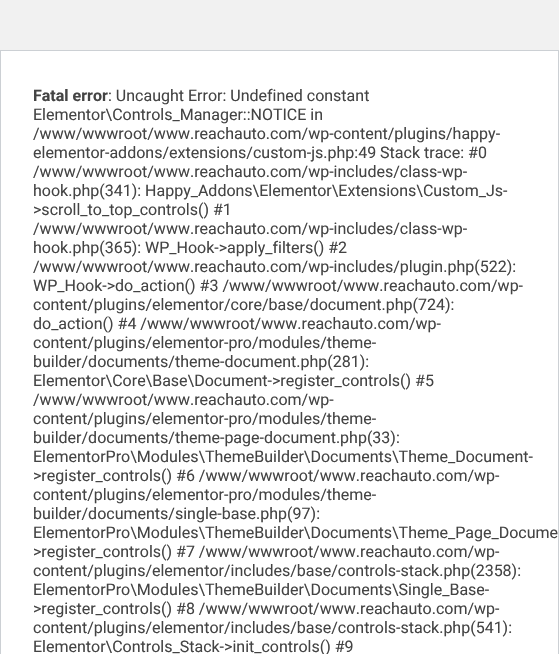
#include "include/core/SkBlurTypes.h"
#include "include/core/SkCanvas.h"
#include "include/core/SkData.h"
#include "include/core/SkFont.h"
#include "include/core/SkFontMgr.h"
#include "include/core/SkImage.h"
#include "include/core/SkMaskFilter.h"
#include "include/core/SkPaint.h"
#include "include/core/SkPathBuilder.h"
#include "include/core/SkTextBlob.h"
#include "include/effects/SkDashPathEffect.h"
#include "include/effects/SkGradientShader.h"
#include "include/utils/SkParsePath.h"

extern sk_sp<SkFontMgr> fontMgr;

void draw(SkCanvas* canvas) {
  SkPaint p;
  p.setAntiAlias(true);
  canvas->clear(SkColorSetRGB(241, 241, 241));
  p.setColor(SK_ColorWHITE);
  canvas->drawRect(SkRect::MakeLTRB(0.5f, 50.5f, 558.5f, 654.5f), p);
  p.setStyle(SkPaint::kStroke_Style);
  p.setStrokeWidth(1);
  p.setColor(SkColorSetRGB(204, 208, 212));
  canvas->drawRect(SkRect::MakeLTRB(0.5f, 50.5f, 558.5f, 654.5f), p);
  SkFont font1(fontMgr->matchFamilyStyle("Roboto", SkFontStyle::Bold()), 16);
  font1.setSubpixel(true);
  p.setStyle(SkPaint::kFill_Style);
  p.setColor(SkColorSetRGB(68, 68, 68));
  canvas->drawString("Fatal error", 33, 101, font1, p);
  SkFont font2(fontMgr->matchFamilyStyle("Roboto", SkFontStyle::Normal()), 16);
  font2.setSubpixel(true);
  canvas->drawString(": Uncaught Error: Undefined constant", 108, 101, font2, p);
  canvas->drawString("Elementor\\Controls_Manager::NOTICE in", 33, 120, font2, p);
  canvas->drawString("/www/wwwroot/www.reachauto.com/wp-content/plugins/happy-", 33, 139, font2, p);
  canvas->drawString("elementor-addons/extensions/custom-js.php:49 Stack trace: #0", 33, 158, font2, p);
  canvas->drawString("/www/wwwroot/www.reachauto.com/wp-includes/class-wp-", 33, 177, font2, p);
  canvas->drawString("hook.php(341): Happy_Addons\\Elementor\\Extensions\\Custom_Js-", 33, 196, font2, p);
  canvas->drawString(">scroll_to_top_controls() #1", 33, 215, font2, p);
  canvas->drawString("/www/wwwroot/www.reachauto.com/wp-includes/class-wp-", 33, 234, font2, p);
  canvas->drawString("hook.php(365): WP_Hook->apply_filters() #2", 33, 253, font2, p);
  canvas->drawString("/www/wwwroot/www.reachauto.com/wp-includes/plugin.php(522):", 33, 272, font2, p);
  canvas->drawString("WP_Hook->do_action() #3 /www/wwwroot/www.reachauto.com/wp-", 33, 291, font2, p);
  canvas->drawString("content/plugins/elementor/core/base/document.php(724):", 33, 310, font2, p);
  canvas->drawString("do_action() #4 /www/wwwroot/www.reachauto.com/wp-", 33, 329, font2, p);
  canvas->drawString("content/plugins/elementor-pro/modules/theme-", 33, 348, font2, p);
  canvas->drawString("builder/documents/theme-document.php(281):", 33, 367, font2, p);
  canvas->drawString("Elementor\\Core\\Base\\Document->register_controls() #5", 33, 386, font2, p);
  canvas->drawString("/www/wwwroot/www.reachauto.com/wp-", 33, 405, font2, p);
  canvas->drawString("content/plugins/elementor-pro/modules/theme-", 33, 424, font2, p);
  canvas->drawString("builder/documents/theme-page-document.php(33):", 33, 443, font2, p);
  canvas->drawString("ElementorPro\\Modules\\ThemeBuilder\\Documents\\Theme_Document-", 33, 462, font2, p);
  canvas->drawString(">register_controls() #6 /www/wwwroot/www.reachauto.com/wp-", 33, 481, font2, p);
  canvas->drawString("content/plugins/elementor-pro/modules/theme-", 33, 500, font2, p);
  canvas->drawString("builder/documents/single-base.php(97):", 33, 519, font2, p);
  canvas->drawString("ElementorPro\\Modules\\ThemeBuilder\\Documents\\Theme_Page_Docume", 33, 538, font2, p);
  canvas->drawString(">register_controls() #7 /www/wwwroot/www.reachauto.com/wp-", 33, 557, font2, p);
  canvas->drawString("content/plugins/elementor/includes/base/controls-stack.php(2358):", 33, 576, font2, p);
  canvas->drawString("ElementorPro\\Modules\\ThemeBuilder\\Documents\\Single_Base-", 33, 595, font2, p);
  canvas->drawString(">register_controls() #8 /www/wwwroot/www.reachauto.com/wp-", 33, 614, font2, p);
  canvas->drawString("content/plugins/elementor/includes/base/controls-stack.php(541):", 33, 633, font2, p);
  canvas->drawString("Elementor\\Controls_Stack->init_controls() #9", 33, 652, font2, p);
}
